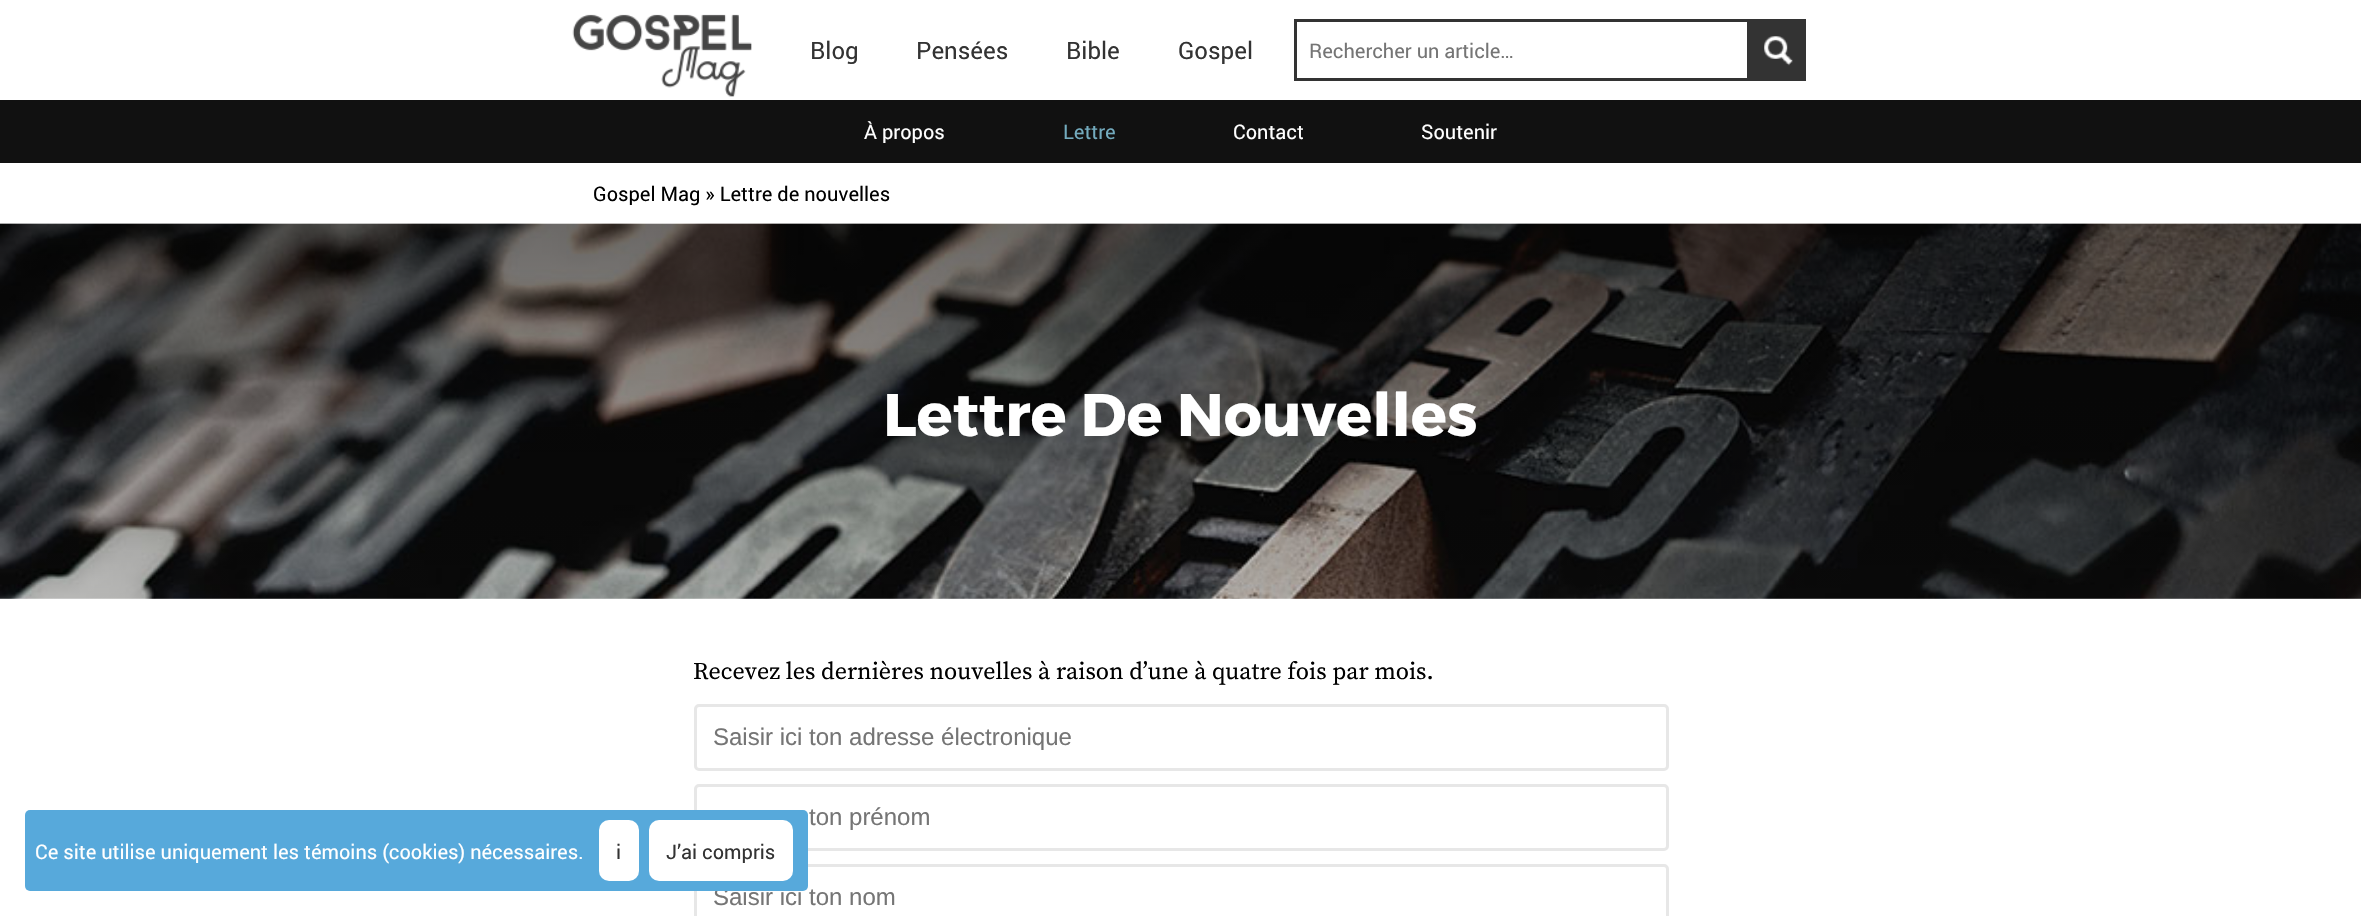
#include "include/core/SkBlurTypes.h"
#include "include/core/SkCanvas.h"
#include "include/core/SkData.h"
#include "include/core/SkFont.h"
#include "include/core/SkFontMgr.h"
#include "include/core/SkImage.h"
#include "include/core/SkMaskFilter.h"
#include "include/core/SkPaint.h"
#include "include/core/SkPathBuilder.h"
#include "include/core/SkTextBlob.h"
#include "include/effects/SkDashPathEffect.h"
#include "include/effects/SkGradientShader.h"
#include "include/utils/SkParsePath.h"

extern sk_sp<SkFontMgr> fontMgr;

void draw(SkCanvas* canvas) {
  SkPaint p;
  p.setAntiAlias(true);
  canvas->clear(SK_ColorWHITE);
  canvas->drawImageRect(SkImages::DeferredFromEncodedData(SkData::MakeFromFileName("images/1.png")), SkRect::MakeLTRB(572, 14, 752, 97), SkSamplingOptions());
  p.setStyle(SkPaint::kStroke_Style);
  p.setStrokeWidth(3);
  p.setColor(SkColorSetRGB(51, 51, 51));
  canvas->drawRect(SkRect::MakeLTRB(1295.5f, 20.5f, 1748.5f, 79.5f), p);
  p.setStyle(SkPaint::kFill_Style);
  canvas->drawRect(SkRect::MakeLTRB(1750, 19, 1806, 81), p);
  canvas->drawImageRect(SkImages::DeferredFromEncodedData(SkData::MakeFromFileName("images/2.png")), SkRect::MakeLTRB(1764, 36, 1793, 66), SkSamplingOptions());
  p.setColor(SkColorSetRGB(17, 17, 17));
  canvas->drawRect(SkRect::MakeLTRB(0, 100, 2361, 163), p);
  canvas->drawImageRect(SkImages::DeferredFromEncodedData(SkData::MakeFromFileName("images/3.png")), SkRect::MakeLTRB(0, 223, 2361, 599), SkSamplingOptions());
  p.setStyle(SkPaint::kStroke_Style);
  p.setColor(SkColorSetRGB(231, 231, 231));
  canvas->drawRoundRect(SkRect::MakeLTRB(695.5f, 705.5f, 1667.5f, 769.5f), 3.5f, 3.5f, p);
  canvas->drawRoundRect(SkRect::MakeLTRB(695.5f, 785.5f, 1667.5f, 849.5f), 3.5f, 3.5f, p);
  canvas->drawRoundRect(SkRect::MakeLTRB(695.5f, 865.5f, 1667.5f, 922.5f), 3.5f, 3.5f, p);
  SkFont font1(fontMgr->matchFamilyStyle("Roboto", SkFontStyle::Normal()), 24);
  font1.setSubpixel(true);
  p.setStyle(SkPaint::kFill_Style);
  p.setColor(SkColorSetRGB(51, 51, 51));
  canvas->drawString("Blog", 810, 59, font1, p);
  canvas->drawString("Pensées", 916, 59, font1, p);
  canvas->drawString("Bible", 1066, 59, font1, p);
  canvas->drawString("Gospel", 1178, 59, font1, p);
  SkFont font2(fontMgr->matchFamilyStyle("Roboto", SkFontStyle::Normal()), 20);
  font2.setSubpixel(true);
  p.setColor(SkColorSetRGB(117, 117, 117));
  canvas->drawString("Rechercher un article…", 1309, 58, font2, p);
  p.setColor(SK_ColorWHITE);
  canvas->drawString("À propos", 864, 139, font2, p);
  p.setColor(SkColorSetRGB(115, 171, 190));
  canvas->drawString("Lettre", 1063, 139, font2, p);
  p.setColor(SK_ColorWHITE);
  canvas->drawString("Contact", 1233, 139, font2, p);
  canvas->drawString("Soutenir", 1421, 139, font2, p);
  p.setColor(SK_ColorBLACK);
  canvas->drawString("Gospel Mag » Lettre de nouvelles", 593, 201, font2, p);
  SkFont font3(fontMgr->matchFamilyStyle("Montserrat", SkFontStyle::Bold()), 60);
  font3.setSubpixel(true);
  p.setColor(SK_ColorWHITE);
  canvas->drawString("Lettre De Nouvelles", 883, 436, font3, p);
  SkFont font4(fontMgr->matchFamilyStyle("Source Serif Pro", SkFontStyle::Normal()), 24);
  font4.setSubpixel(true);
  p.setColor(SK_ColorBLACK);
  canvas->drawString("Recevez les dernières nouvelles à raison d’une à quatre fois par mois.", 693, 679, font4, p);
  SkFont font5(fontMgr->matchFamilyStyle("Liberation Sans", SkFontStyle::Normal()), 24);
  font5.setSubpixel(true);
  p.setColor(SkColorSetRGB(117, 117, 117));
  canvas->drawString("Saisir ici ton adresse électronique", 713, 745, font5, p);
  canvas->drawString("ton prénom", 809, 825, font5, p);
  canvas->drawString("Saisir ici ton nom", 713, 905, font5, p);
  p.setColor(SkColorSetRGB(87, 169, 219));
  canvas->drawRoundRect(SkRect::MakeLTRB(25, 810, 808, 891), 5, 5, p);
  p.setColor(SK_ColorWHITE);
  canvas->drawRoundRect(SkRect::MakeLTRB(649, 820, 793, 881), 10, 10, p);
  p.setColor(SkColorSetRGB(51, 51, 51));
  canvas->drawString("J’ai compris", 666, 859, font2, p);
  p.setColor(SK_ColorWHITE);
  canvas->drawRoundRect(SkRect::MakeLTRB(599, 820, 639, 881), 10, 10, p);
  p.setColor(SkColorSetRGB(51, 51, 51));
  canvas->drawString("i", 616, 859, font2, p);
  p.setColor(SK_ColorWHITE);
  canvas->drawString("Ce site utilise uniquement les témoins (cookies) nécessaires.", 35, 859, font2, p);
}
